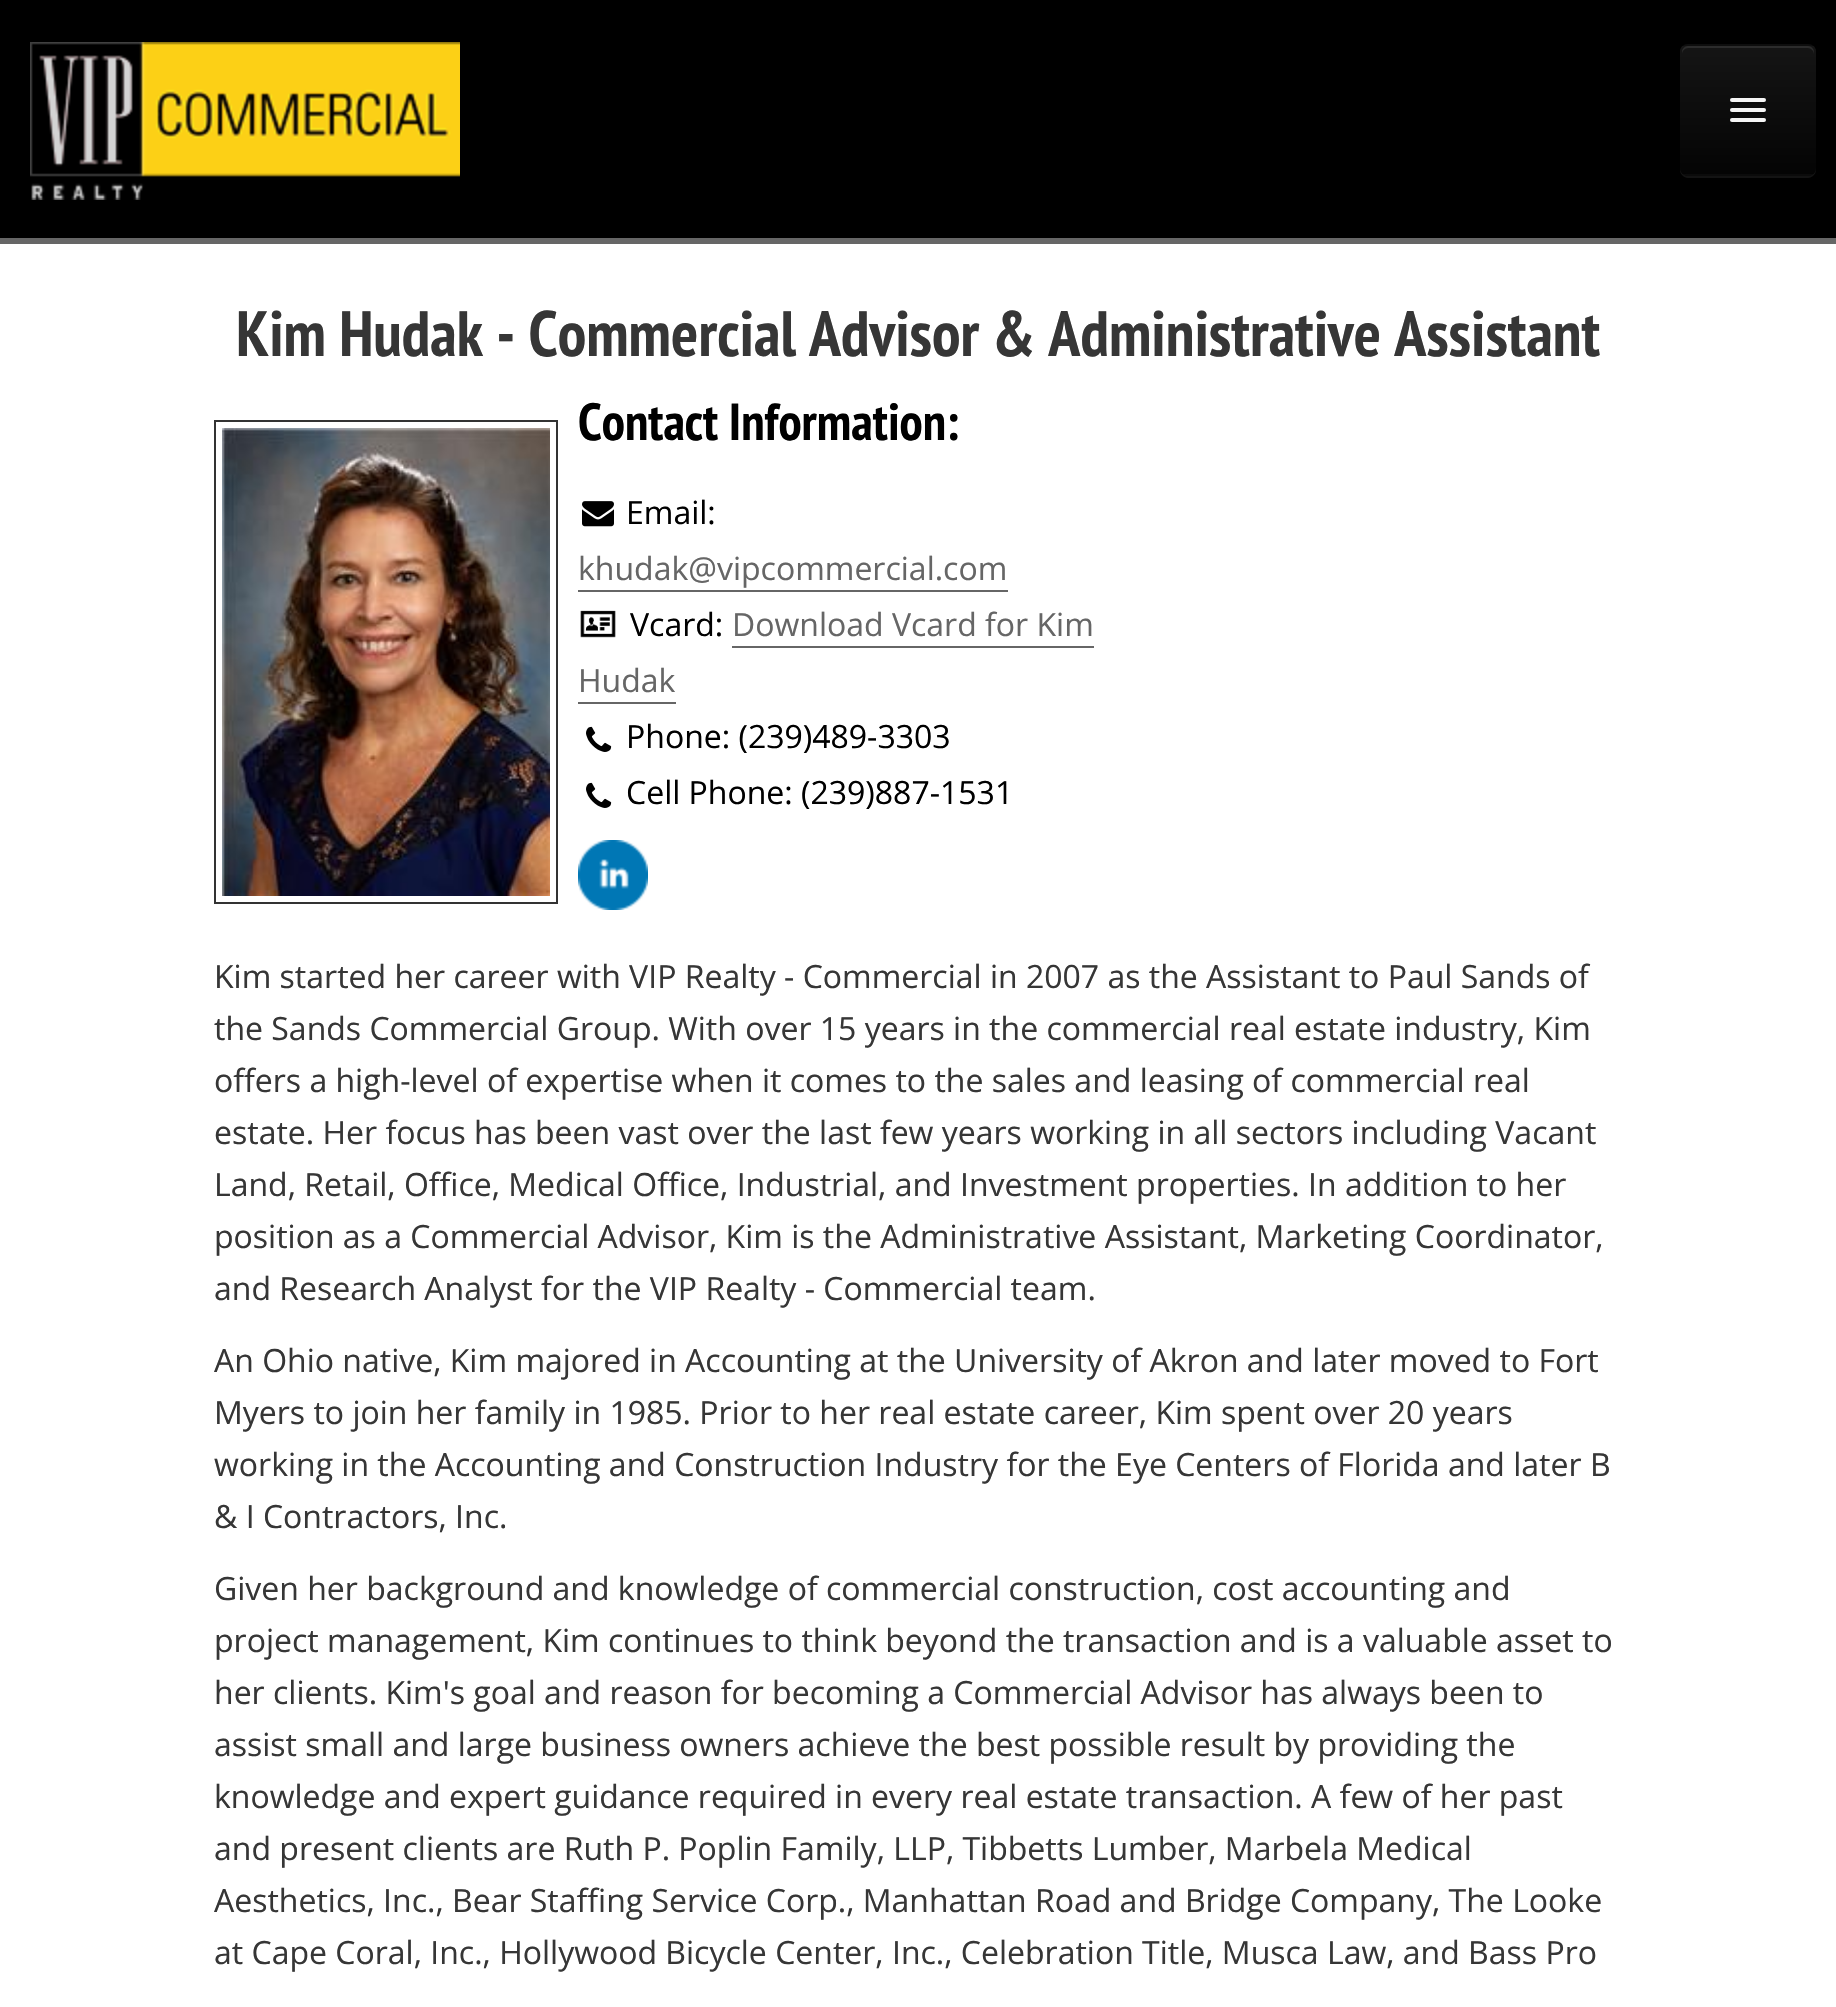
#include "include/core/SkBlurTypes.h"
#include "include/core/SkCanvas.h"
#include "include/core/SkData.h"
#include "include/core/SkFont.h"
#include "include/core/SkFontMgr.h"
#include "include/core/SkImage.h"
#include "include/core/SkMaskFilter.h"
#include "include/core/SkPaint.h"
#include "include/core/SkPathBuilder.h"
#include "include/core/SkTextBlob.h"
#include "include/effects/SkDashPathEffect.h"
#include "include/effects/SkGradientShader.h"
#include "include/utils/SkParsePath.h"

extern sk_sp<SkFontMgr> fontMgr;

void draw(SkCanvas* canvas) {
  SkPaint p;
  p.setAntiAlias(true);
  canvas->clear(SK_ColorWHITE);
  p.setColor(SK_ColorBLACK);
  canvas->drawRect(SkRect::MakeLTRB(0, 0, 1836, 238), p);
  canvas->drawImageRect(SkImages::DeferredFromEncodedData(SkData::MakeFromFileName("images/1.png")), SkRect::MakeLTRB(30, 42, 460, 200), SkSamplingOptions());
  p.setColor(SkColorSetRGB(102, 102, 102));
  canvas->drawRect(SkRect::MakeLTRB(0, 238, 1836, 244), p);
  p.setColor(SkColorSetRGB(19, 19, 19));
  canvas->drawPath(SkPathBuilder().moveTo(1680, 168).lineTo(1680, 170).cubicTo(1680, 174, 1684, 178, 1688, 178).lineTo(1808, 178).cubicTo(1812, 178, 1816, 174, 1816, 170).lineTo(1816, 168).cubicTo(1816, 172, 1812, 176, 1808, 176).lineTo(1688, 176).cubicTo(1684, 176, 1680, 172, 1680, 168).close().detach(), p);
  p.setColor(SkColorSetRGB(14, 14, 14));
  canvas->drawRoundRect(SkRect::MakeLTRB(1680, 44, 1816, 176), 8, 8, p);
  canvas->save();
  canvas->clipPath(SkPathBuilder().moveTo(1688, 44).lineTo(1808, 44).cubicTo(1812.5f, 44, 1816, 47.5f, 1816, 52).lineTo(1816, 168).cubicTo(1816, 172.5f, 1812.5f, 176, 1808, 176).lineTo(1688, 176).cubicTo(1683.5f, 176, 1680, 172.5f, 1680, 168).lineTo(1680, 52).cubicTo(1680, 47.5f, 1683.5f, 44, 1688, 44).close().detach(), true);
  {
    const SkColor colors[] = {SkColorSetRGB(21, 21, 21), SkColorSetRGB(4, 4, 4)};
    const float stops[] = {0, 1};
    const SkPoint ends[] = {{1748, 46}, {1748, 174}};
    p.setShader(SkGradientShader::MakeLinear(ends, colors, stops, 2, SkTileMode::kClamp));
    p.setAlpha(255);
  }
  canvas->drawRect(SkRect::MakeLTRB(1680, 46, 1816, 174), p);
  canvas->restore();
  p.setShader(nullptr);
  p.setColor(SkColorSetRGB(44, 44, 44));
  canvas->drawPath(SkPathBuilder().moveTo(1688, 48).lineTo(1808, 48).cubicTo(1811, 48, 1814, 51, 1814, 54).lineTo(1814, 52).cubicTo(1814, 49, 1811, 46, 1808, 46).lineTo(1688, 46).cubicTo(1685, 46, 1682, 49, 1682, 52).lineTo(1682, 54).cubicTo(1682, 51, 1685, 48, 1688, 48).close().detach(), p);
  p.setStyle(SkPaint::kStroke_Style);
  p.setStrokeWidth(2);
  p.setColor(SkColorSetARGB(64, 0, 0, 0));
  canvas->drawPath(SkPathBuilder().moveTo(1813, 173).cubicTo(1811.5f, 174.5f, 1810, 175, 1808, 175).lineTo(1688, 175).cubicTo(1686, 175, 1684.5f, 174.5f, 1683, 173).detach(), p);
  p.setStyle(SkPaint::kFill_Style);
  p.setColor(SkColorSetRGB(10, 10, 10));
  canvas->drawPath(SkPathBuilder().moveTo(1730.5f, 101).cubicTo(1728, 105, 1737, 104, 1737.5f, 104).lineTo(1758.5f, 104).cubicTo(1759, 104, 1768, 105, 1765.5f, 101).cubicTo(1765.5f, 101.5f, 1764.5f, 102, 1764, 102).lineTo(1732, 102).cubicTo(1731.5f, 102, 1730.5f, 101.5f, 1730.5f, 101).close().detach(), p);
  p.setColor(SkColorSetRGB(245, 245, 245));
  canvas->drawRoundRect(SkRect::MakeLTRB(1730, 98, 1766, 102), 2, 2, p);
  p.setColor(SkColorSetRGB(9, 9, 9));
  canvas->drawPath(SkPathBuilder().moveTo(1730.5f, 111).cubicTo(1728, 115, 1737, 114, 1737.5f, 114).lineTo(1758.5f, 114).cubicTo(1759, 114, 1768, 115, 1765.5f, 111).cubicTo(1765.5f, 111.5f, 1764.5f, 112, 1764, 112).lineTo(1732, 112).cubicTo(1731.5f, 112, 1730.5f, 111.5f, 1730.5f, 111).close().detach(), p);
  p.setColor(SkColorSetRGB(245, 245, 245));
  canvas->drawRoundRect(SkRect::MakeLTRB(1730, 108, 1766, 112), 2, 2, p);
  p.setColor(SkColorSetRGB(8, 8, 8));
  canvas->drawPath(SkPathBuilder().moveTo(1730.5f, 121).cubicTo(1728, 125, 1737, 124, 1737.5f, 124).lineTo(1758.5f, 124).cubicTo(1759, 124, 1768, 125, 1765.5f, 121).cubicTo(1765.5f, 121.5f, 1764.5f, 122, 1764, 122).lineTo(1732, 122).cubicTo(1731.5f, 122, 1730.5f, 121.5f, 1730.5f, 121).close().detach(), p);
  p.setColor(SkColorSetRGB(245, 245, 245));
  canvas->drawRoundRect(SkRect::MakeLTRB(1730, 118, 1766, 122), 2, 2, p);
  p.setStyle(SkPaint::kStroke_Style);
  p.setColor(SkColorSetRGB(51, 51, 51));
  canvas->drawRect(SkRect::MakeLTRB(215, 421, 557, 903), p);
  canvas->drawImageRect(SkImages::DeferredFromEncodedData(SkData::MakeFromFileName("images/2.png")), SkRect::MakeLTRB(222, 428, 550, 896), SkSamplingOptions());
  canvas->drawImageRect(SkImages::DeferredFromEncodedData(SkData::MakeFromFileName("images/3.png")), SkRect::MakeLTRB(582, 501, 614, 527), SkSamplingOptions());
  p.setStyle(SkPaint::kFill_Style);
  p.setColor(SkColorSetRGB(102, 102, 102));
  canvas->drawRect(SkRect::MakeLTRB(578, 590, 1008, 592), p);
  canvas->drawImageRect(SkImages::DeferredFromEncodedData(SkData::MakeFromFileName("images/4.png")), SkRect::MakeLTRB(580, 610, 616, 638), SkSamplingOptions());
  canvas->drawRect(SkRect::MakeLTRB(732, 646, 1094, 648), p);
  canvas->drawRect(SkRect::MakeLTRB(578, 702, 676, 704), p);
  canvas->drawImageRect(SkImages::DeferredFromEncodedData(SkData::MakeFromFileName("images/5.png")), SkRect::MakeLTRB(586, 726, 612, 752), SkSamplingOptions());
  canvas->drawImageRect(SkImages::DeferredFromEncodedData(SkData::MakeFromFileName("images/5.png")), SkRect::MakeLTRB(586, 782, 612, 808), SkSamplingOptions());
  canvas->drawImageRect(SkImages::DeferredFromEncodedData(SkData::MakeFromFileName("images/6.png")), SkRect::MakeLTRB(578, 840, 648, 910), SkSamplingOptions());
  SkFont font1(fontMgr->matchFamilyStyle("PT Sans Narrow", SkFontStyle::Bold()), 64);
  font1.setSubpixel(true);
  p.setColor(SkColorSetRGB(54, 54, 54));
  canvas->drawString("Kim Hudak - Commercial Advisor & Administrative Assistant", 236, 356, font1, p);
  SkFont font2(fontMgr->matchFamilyStyle("PT Sans Narrow", SkFontStyle::Bold()), 52);
  font2.setSubpixel(true);
  p.setColor(SK_ColorBLACK);
  canvas->drawString("Contact Information:", 578, 440, font2, p);
  SkFont font3(fontMgr->matchFamilyStyle("Open Sans", SkFontStyle::Normal()), 32);
  font3.setSubpixel(true);
  canvas->drawString("Email:", 626, 524, font3, p);
  p.setColor(SkColorSetRGB(102, 102, 102));
  canvas->drawString("khudak@vipcommercial.com", 578, 580, font3, p);
  p.setColor(SK_ColorBLACK);
  canvas->drawString("Vcard:", 630, 636, font3, p);
  p.setColor(SkColorSetRGB(102, 102, 102));
  canvas->drawString("Download Vcard for Kim", 732, 636, font3, p);
  canvas->drawString("Hudak", 578, 692, font3, p);
  p.setColor(SK_ColorBLACK);
  canvas->drawString("Phone: (239)489-3303", 626, 748, font3, p);
  canvas->drawString("Cell Phone: (239)887-1531", 626, 804, font3, p);
  p.setColor(SkColorSetRGB(54, 54, 54));
  canvas->drawString("Kim started her career with VIP Realty - Commercial in 2007 as the Assistant to Paul Sands of", 214, 988, font3, p);
  canvas->drawString("the Sands Commercial Group. With over 15 years in the commercial real estate industry, Kim", 214, 1040, font3, p);
  canvas->drawString("offers a high-level of expertise when it comes to the sales and leasing of commercial real", 214, 1092, font3, p);
  canvas->drawString("estate. Her focus has been vast over the last few years working in all sectors including Vacant", 214, 1144, font3, p);
  canvas->drawString("Land, Retail, Office, Medical Office, Industrial, and Investment properties. In addition to her", 214, 1196, font3, p);
  canvas->drawString("position as a Commercial Advisor, Kim is the Administrative Assistant, Marketing Coordinator,", 214, 1248, font3, p);
  canvas->drawString("and Research Analyst for the VIP Realty - Commercial team.", 214, 1300, font3, p);
  canvas->drawString("An Ohio native, Kim majored in Accounting at the University of Akron and later moved to Fort", 214, 1372, font3, p);
  canvas->drawString("Myers to join her family in 1985. Prior to her real estate career, Kim spent over 20 years", 214, 1424, font3, p);
  canvas->drawString("working in the Accounting and Construction Industry for the Eye Centers of Florida and later B", 214, 1476, font3, p);
  canvas->drawString("& I Contractors, Inc.", 214, 1528, font3, p);
  canvas->drawString("Given her background and knowledge of commercial construction, cost accounting and", 214, 1600, font3, p);
  canvas->drawString("project management, Kim continues to think beyond the transaction and is a valuable asset to", 214, 1652, font3, p);
  canvas->drawString("her clients. Kim's goal and reason for becoming a Commercial Advisor has always been to", 214, 1704, font3, p);
  canvas->drawString("assist small and large business owners achieve the best possible result by providing the", 214, 1756, font3, p);
  canvas->drawString("knowledge and expert guidance required in every real estate transaction. A few of her past", 214, 1808, font3, p);
  canvas->drawString("and present clients are Ruth P. Poplin Family, LLP, Tibbetts Lumber, Marbela Medical", 214, 1860, font3, p);
  canvas->drawString("Aesthetics, Inc., Bear Staffing Service Corp., Manhattan Road and Bridge Company, The Looke", 214, 1912, font3, p);
  canvas->drawString("at Cape Coral, Inc., Hollywood Bicycle Center, Inc., Celebration Title, Musca Law, and Bass Pro", 214, 1964, font3, p);
}
